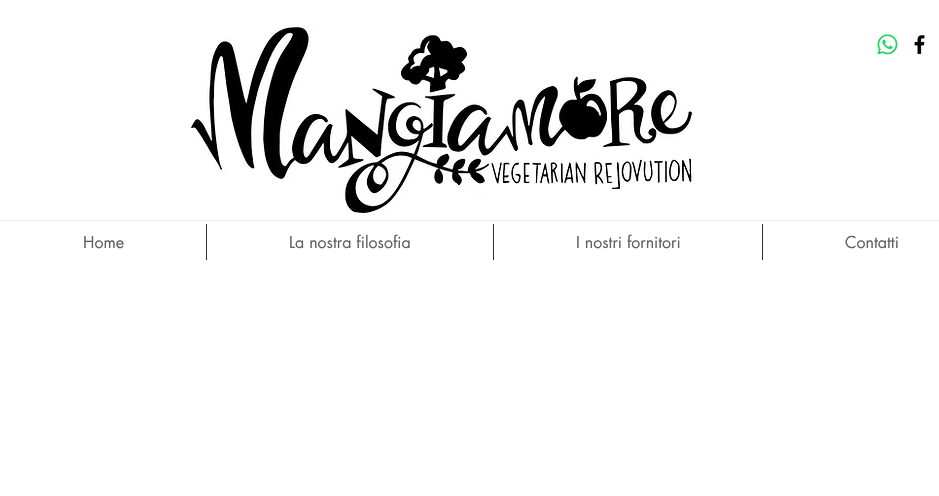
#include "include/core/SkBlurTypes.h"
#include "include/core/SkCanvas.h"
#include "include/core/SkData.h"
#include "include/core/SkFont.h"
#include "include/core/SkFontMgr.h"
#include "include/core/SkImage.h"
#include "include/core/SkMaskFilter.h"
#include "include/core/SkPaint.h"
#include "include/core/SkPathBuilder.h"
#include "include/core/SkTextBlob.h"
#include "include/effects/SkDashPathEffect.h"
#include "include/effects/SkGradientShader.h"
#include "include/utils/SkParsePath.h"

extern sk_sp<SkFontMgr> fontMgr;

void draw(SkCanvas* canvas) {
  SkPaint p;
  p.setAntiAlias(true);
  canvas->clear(SK_ColorWHITE);
  canvas->drawImageRect(SkImages::DeferredFromEncodedData(SkData::MakeFromFileName("images/1.png")), SkRect::MakeLTRB(191, 24, 695, 213), SkSamplingOptions());
  canvas->drawImageRect(SkImages::DeferredFromEncodedData(SkData::MakeFromFileName("images/2.png")), SkRect::MakeLTRB(877, 34, 898, 55), SkSamplingOptions());
  canvas->drawImageRect(SkImages::DeferredFromEncodedData(SkData::MakeFromFileName("images/3.png")), SkRect::MakeLTRB(914, 35, 925, 55), SkSamplingOptions());
  p.setColor(SkColorSetRGB(233, 233, 233));
  canvas->drawRect(SkRect::MakeLTRB(0, 220, 939, 221), p);
  p.setColor(SkColorSetRGB(47, 46, 46));
  canvas->drawRect(SkRect::MakeLTRB(206, 224, 207, 260), p);
  canvas->drawRect(SkRect::MakeLTRB(493, 224, 494, 260), p);
  canvas->drawRect(SkRect::MakeLTRB(762, 224, 763, 260), p);
  SkFont font1(fontMgr->matchFamilyStyle("futura", SkFontStyle::Normal()), 16);
  font1.setSubpixel(true);
  p.setColor(SkColorSetRGB(96, 94, 94));
  canvas->drawString("Home", 83, 248, font1, p);
  canvas->drawString("La nostra filosofia", 289, 248, font1, p);
  canvas->drawString("I nostri fornitori", 576, 248, font1, p);
  canvas->drawString("Contatti", 845, 248, font1, p);
}
